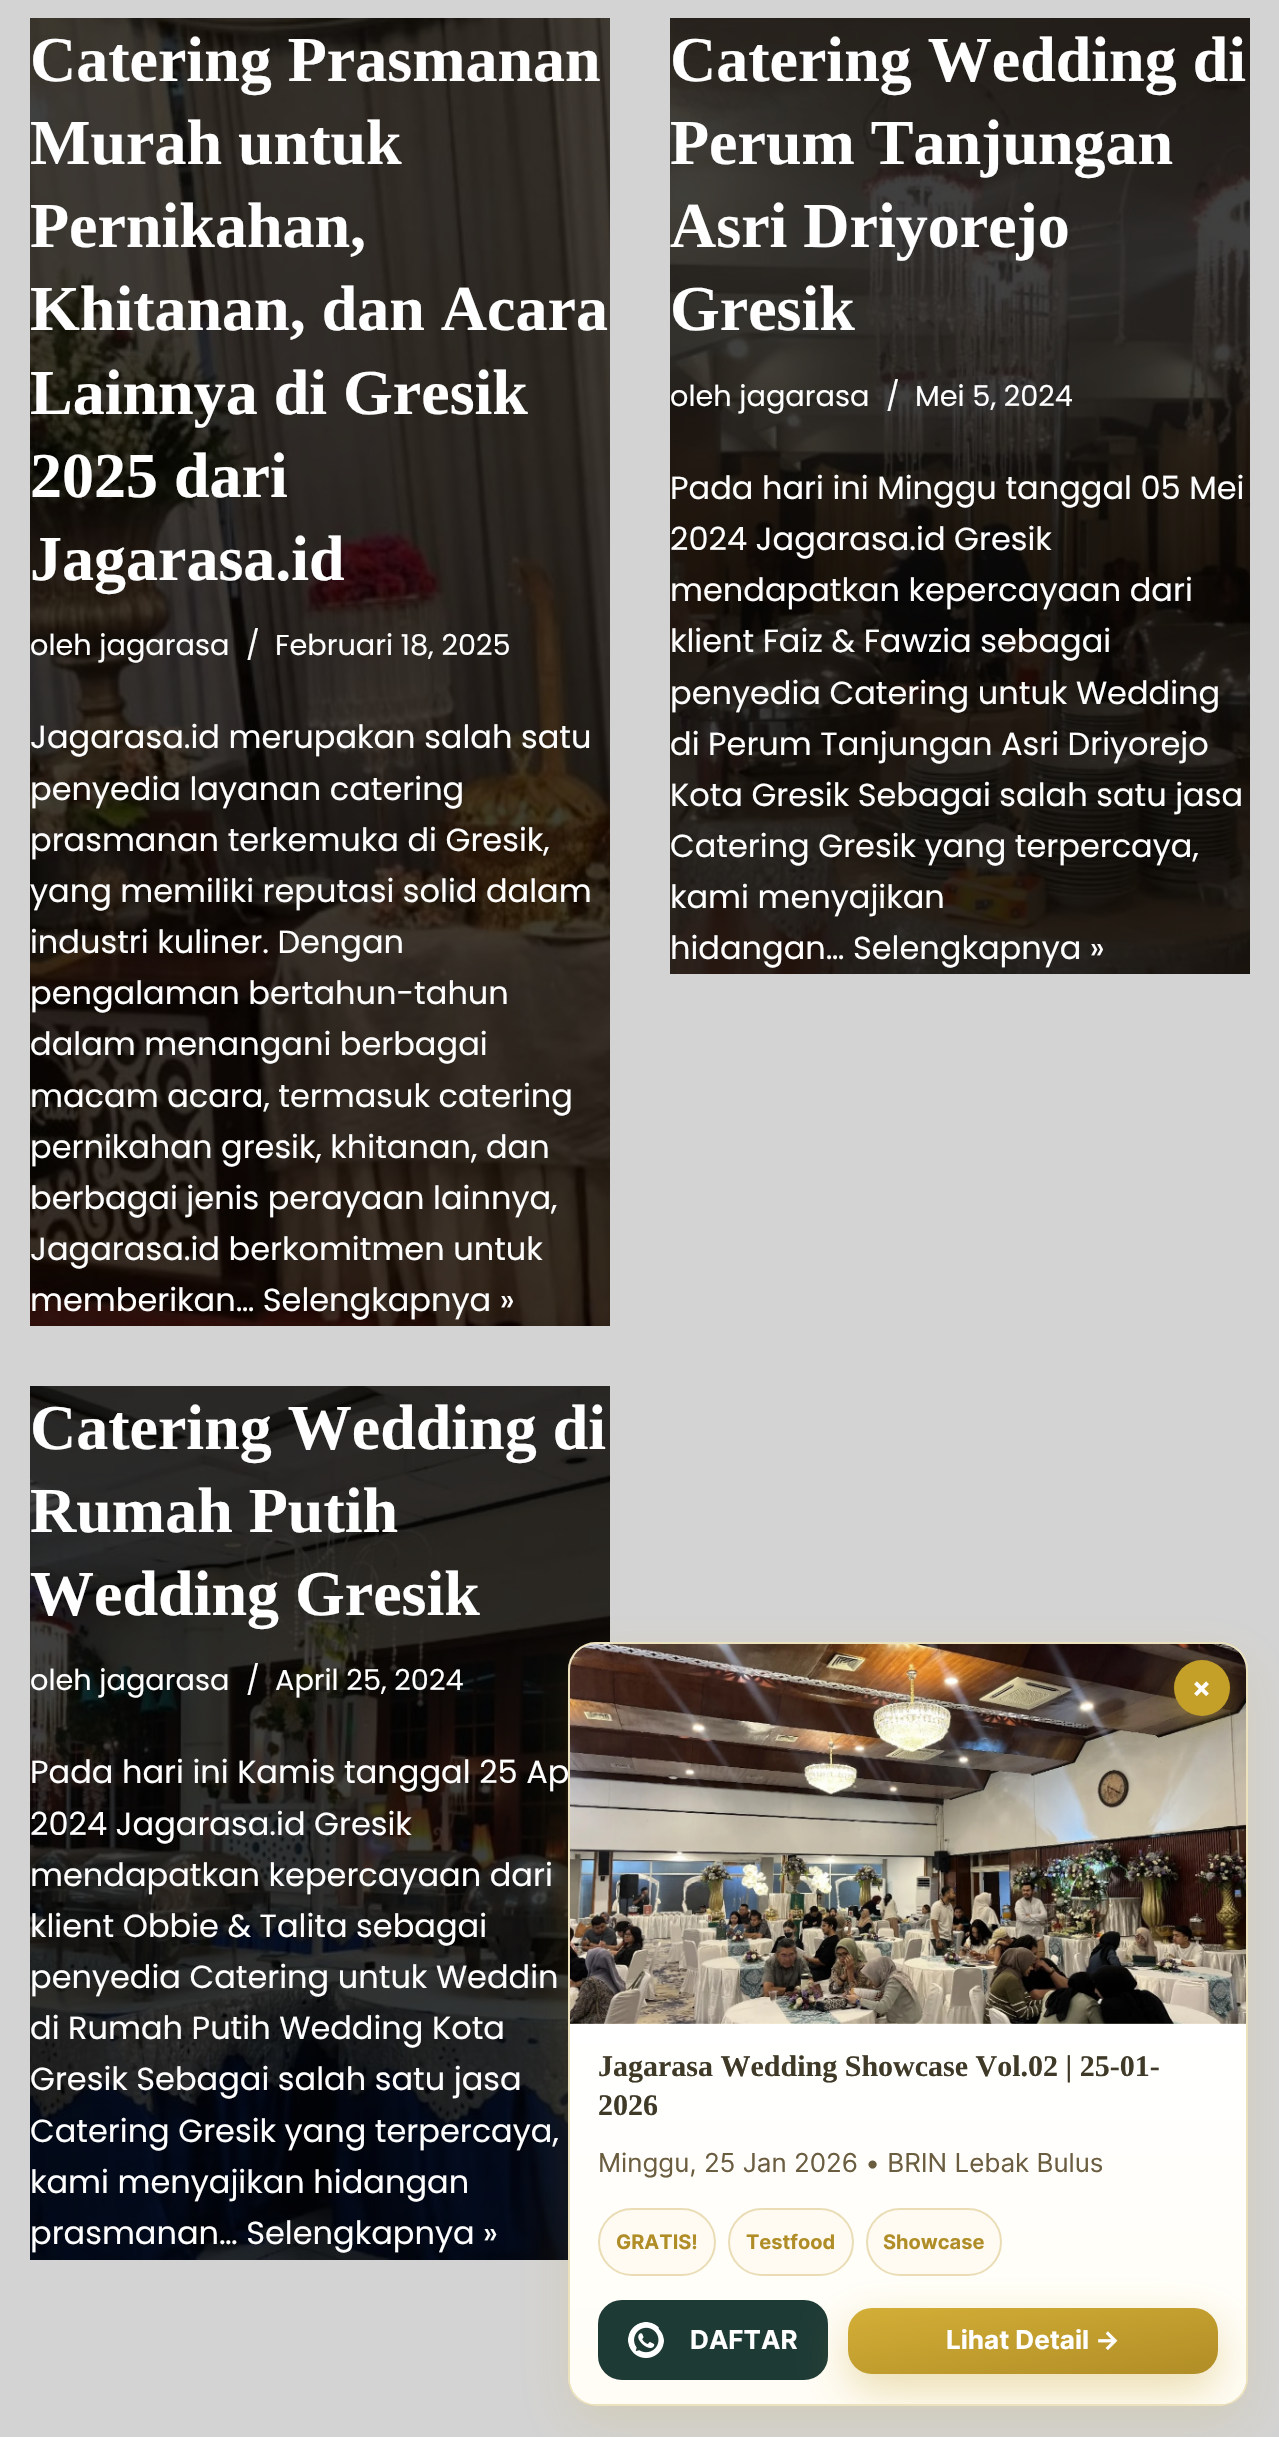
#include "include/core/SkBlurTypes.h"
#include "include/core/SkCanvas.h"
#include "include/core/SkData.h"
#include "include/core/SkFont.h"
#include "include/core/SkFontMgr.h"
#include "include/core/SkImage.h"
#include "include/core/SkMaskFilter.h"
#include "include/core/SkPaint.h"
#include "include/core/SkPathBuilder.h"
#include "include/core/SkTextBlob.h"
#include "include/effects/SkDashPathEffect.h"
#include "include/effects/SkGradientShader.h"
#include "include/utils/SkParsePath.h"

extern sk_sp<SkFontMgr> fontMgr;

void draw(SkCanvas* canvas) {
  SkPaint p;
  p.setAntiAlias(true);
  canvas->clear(SkColorSetRGB(211, 211, 211));
  canvas->drawImageRect(SkImages::DeferredFromEncodedData(SkData::MakeFromFileName("images/1.png")), SkRect::MakeLTRB(30, 18, 610, 1326), SkSamplingOptions());
  canvas->drawImageRect(SkImages::DeferredFromEncodedData(SkData::MakeFromFileName("images/2.png")), SkRect::MakeLTRB(670, 18, 1250, 974), SkSamplingOptions());
  canvas->drawImageRect(SkImages::DeferredFromEncodedData(SkData::MakeFromFileName("images/3.png")), SkRect::MakeLTRB(30, 1386, 610, 2260), SkSamplingOptions());
  p.setColor(SkColorSetARGB(38, 197, 160, 40));
  p.setMaskFilter(SkMaskFilter::MakeBlur(kNormal_SkBlurStyle, 26));
  canvas->drawRoundRect(SkRect::MakeLTRB(568, 1662, 1248, 2426), 28, 28, p);
  p.setMaskFilter(nullptr);
  p.setColor(SK_ColorWHITE);
  canvas->drawRoundRect(SkRect::MakeLTRB(568, 1642, 1248, 2406), 28, 28, p);
  SkFont font1(fontMgr->matchFamilyStyle("Liberation Serif", SkFontStyle::Bold()), 64);
  font1.setSubpixel(true);
  canvas->drawString("Catering Prasmanan", 30, 81, font1, p);
  canvas->drawString("Murah untuk", 30, 164, font1, p);
  canvas->drawString("Pernikahan,", 30, 247, font1, p);
  canvas->drawString("Khitanan, dan Acara", 30, 330, font1, p);
  canvas->drawString("Lainnya di Gresik", 30, 414, font1, p);
  canvas->drawString("2025 dari", 30, 497, font1, p);
  canvas->drawString("Jagarasa.id", 30, 580, font1, p);
  SkFont font2(fontMgr->matchFamilyStyle("Poppins", SkFontStyle::Normal()), 28.75f);
  font2.setSubpixel(true);
  canvas->drawString("oleh jagarasa", 30, 655, font2, p);
  canvas->drawString("/", 246, 655, font2, p);
  canvas->drawString("Februari 18, 2025", 275, 655, font2, p);
  SkFont font3(fontMgr->matchFamilyStyle("Poppins", SkFontStyle::Normal()), 32);
  font3.setSubpixel(true);
  canvas->drawString("Jagarasa.id merupakan salah satu", 30, 748, font3, p);
  canvas->drawString("penyedia layanan catering", 30, 800, font3, p);
  canvas->drawString("prasmanan terkemuka di Gresik,", 30, 851, font3, p);
  canvas->drawString("yang memiliki reputasi solid dalam", 30, 902, font3, p);
  canvas->drawString("industri kuliner. Dengan", 30, 953, font3, p);
  canvas->drawString("pengalaman bertahun-tahun", 30, 1004, font3, p);
  canvas->drawString("dalam menangani berbagai", 30, 1055, font3, p);
  canvas->drawString("macam acara, termasuk catering", 30, 1107, font3, p);
  canvas->drawString("pernikahan gresik, khitanan, dan", 30, 1158, font3, p);
  canvas->drawString("berbagai jenis perayaan lainnya,", 30, 1209, font3, p);
  canvas->drawString("Jagarasa.id berkomitmen untuk", 30, 1260, font3, p);
  canvas->drawString("memberikan… Selengkapnya »", 30, 1311, font3, p);
  canvas->drawString("Catering Wedding di", 670, 81, font1, p);
  canvas->drawString("Perum Tanjungan", 670, 164, font1, p);
  canvas->drawString("Asri Driyorejo", 670, 247, font1, p);
  canvas->drawString("Gresik", 670, 330, font1, p);
  canvas->drawString("oleh jagarasa", 670, 406, font2, p);
  canvas->drawString("/", 886, 406, font2, p);
  canvas->drawString("Mei 5, 2024", 915, 406, font2, p);
  canvas->drawString("Pada hari ini Minggu tanggal 05 Mei", 670, 499, font3, p);
  canvas->drawString("2024 Jagarasa.id Gresik", 670, 550, font3, p);
  canvas->drawString("mendapatkan kepercayaan dari", 670, 601, font3, p);
  canvas->drawString("klient Faiz & Fawzia sebagai", 670, 652, font3, p);
  canvas->drawString("penyedia Catering untuk Wedding", 670, 704, font3, p);
  canvas->drawString("di Perum Tanjungan Asri Driyorejo", 670, 755, font3, p);
  canvas->drawString("Kota Gresik Sebagai salah satu jasa", 670, 806, font3, p);
  canvas->drawString("Catering Gresik yang terpercaya,", 670, 857, font3, p);
  canvas->drawString("kami menyajikan", 670, 908, font3, p);
  canvas->drawString("hidangan… Selengkapnya »", 670, 959, font3, p);
  canvas->drawString("Catering Wedding di", 30, 1449, font1, p);
  canvas->drawString("Rumah Putih", 30, 1532, font1, p);
  canvas->drawString("Wedding Gresik", 30, 1615, font1, p);
  canvas->drawString("oleh jagarasa", 30, 1690, font2, p);
  canvas->drawString("/", 246, 1690, font2, p);
  canvas->drawString("April 25, 2024", 275, 1690, font2, p);
  canvas->drawString("Pada hari ini Kamis tanggal 25 Ap", 30, 1783, font3, p);
  canvas->drawString("2024 Jagarasa.id Gresik", 30, 1835, font3, p);
  canvas->drawString("mendapatkan kepercayaan dari", 30, 1886, font3, p);
  canvas->drawString("klient Obbie & Talita sebagai", 30, 1937, font3, p);
  canvas->drawString("penyedia Catering untuk Weddin", 30, 1988, font3, p);
  canvas->drawString("di Rumah Putih Wedding Kota", 30, 2039, font3, p);
  canvas->drawString("Gresik Sebagai salah satu jasa", 30, 2090, font3, p);
  canvas->drawString("Catering Gresik yang terpercaya,", 30, 2142, font3, p);
  canvas->drawString("kami menyajikan hidangan", 30, 2193, font3, p);
  canvas->drawString("prasmanan… Selengkapnya »", 30, 2244, font3, p);
  p.setStyle(SkPaint::kStroke_Style);
  p.setStrokeWidth(2);
  p.setColor(SkColorSetARGB(77, 197, 160, 40));
  canvas->drawRoundRect(SkRect::MakeLTRB(569, 1643, 1247, 2405), 27, 27, p);
  p.setStyle(SkPaint::kFill_Style);
  p.setColor(SkColorSetRGB(254, 252, 232));
  canvas->drawPath(SkPathBuilder().moveTo(596, 1644).lineTo(1220, 1644).cubicTo(1234.5f, 1644, 1246, 1655.5f, 1246, 1670).lineTo(1246, 2024).lineTo(570, 2024).lineTo(570, 1670).cubicTo(570, 1655.5f, 581.5f, 1644, 596, 1644).close().detach(), p);
  canvas->drawImageRect(SkImages::DeferredFromEncodedData(SkData::MakeFromFileName("images/4.png")), SkRect::MakeLTRB(570, 1644, 1246, 2024), SkSamplingOptions());
  p.setColor(SkColorSetARGB(77, 197, 160, 40));
  p.setMaskFilter(SkMaskFilter::MakeBlur(kNormal_SkBlurStyle, 10));
  canvas->drawRoundRect(SkRect::MakeLTRB(1174, 1668, 1230, 1724), 28, 28, p);
  p.setMaskFilter(nullptr);
  p.setColor(SkColorSetRGB(197, 160, 40));
  canvas->drawCircle(1202, 1688, 28, p);
  SkFont font4(fontMgr->matchFamilyStyle("Inter", SkFontStyle::Bold()), 28);
  font4.setSubpixel(true);
  p.setColor(SK_ColorWHITE);
  canvas->drawString("×", 1192, 1697, font4, p);
  {
    const SkColor colors[] = {SK_ColorWHITE, SkColorSetRGB(255, 253, 245)};
    const float stops[] = {0, 1};
    const SkPoint ends[] = {{908, 2024}, {908, 2404}};
    p.setShader(SkGradientShader::MakeLinear(ends, colors, stops, 2, SkTileMode::kClamp));
    p.setAlpha(255);
  }
  canvas->drawPath(SkPathBuilder().moveTo(570, 2024).lineTo(1246, 2024).lineTo(1246, 2378).cubicTo(1246, 2392.5f, 1234.5f, 2404, 1220, 2404).lineTo(596, 2404).cubicTo(581.5f, 2404, 570, 2392.5f, 570, 2378).close().detach(), p);
  SkFont font5(fontMgr->matchFamilyStyle("Liberation Serif", SkFontStyle::Bold()), 30);
  font5.setSubpixel(true);
  p.setShader(nullptr);
  p.setColor(SkColorSetRGB(63, 58, 40));
  canvas->drawString("Jagarasa Wedding Showcase Vol.02 | 25-01-", 598, 2076, font5, p);
  canvas->drawString("2026", 598, 2115, font5, p);
  SkFont font6(fontMgr->matchFamilyStyle("Inter", SkFontStyle::Normal()), 26);
  font6.setSubpixel(true);
  p.setColor(SkColorSetRGB(107, 93, 64));
  canvas->drawString("Minggu, 25 Jan 2026 • BRIN Lebak Bulus", 598, 2172, font6, p);
  p.setColor(SkColorSetRGB(255, 251, 242));
  canvas->drawRoundRect(SkRect::MakeLTRB(599, 2209, 715, 2275), 33, 33, p);
  p.setStyle(SkPaint::kStroke_Style);
  p.setColor(SkColorSetRGB(234, 221, 182));
  canvas->drawRoundRect(SkRect::MakeLTRB(599, 2209, 715, 2275), 33, 33, p);
  SkFont font7(fontMgr->matchFamilyStyle("Inter", SkFontStyle::Bold()), 20);
  font7.setSubpixel(true);
  p.setStyle(SkPaint::kFill_Style);
  p.setColor(SkColorSetRGB(176, 141, 38));
  canvas->drawString("GRATIS!", 616, 2249, font7, p);
  p.setColor(SkColorSetRGB(255, 251, 242));
  canvas->drawRoundRect(SkRect::MakeLTRB(729, 2209, 853, 2275), 33, 33, p);
  p.setStyle(SkPaint::kStroke_Style);
  p.setColor(SkColorSetRGB(234, 221, 182));
  canvas->drawRoundRect(SkRect::MakeLTRB(729, 2209, 853, 2275), 33, 33, p);
  p.setStyle(SkPaint::kFill_Style);
  p.setColor(SkColorSetRGB(176, 141, 38));
  canvas->drawString("Testfood", 746, 2249, font7, p);
  p.setColor(SkColorSetRGB(255, 251, 242));
  canvas->drawRoundRect(SkRect::MakeLTRB(867, 2209, 1001, 2275), 33, 33, p);
  p.setStyle(SkPaint::kStroke_Style);
  p.setColor(SkColorSetRGB(234, 221, 182));
  canvas->drawRoundRect(SkRect::MakeLTRB(867, 2209, 1001, 2275), 33, 33, p);
  p.setStyle(SkPaint::kFill_Style);
  p.setColor(SkColorSetRGB(176, 141, 38));
  canvas->drawString("Showcase", 883, 2249, font7, p);
  p.setColor(SkColorSetRGB(30, 58, 53));
  canvas->drawRoundRect(SkRect::MakeLTRB(599, 2301, 827, 2379), 23, 23, p);
  p.setStyle(SkPaint::kStroke_Style);
  canvas->drawRoundRect(SkRect::MakeLTRB(599, 2301, 827, 2379), 23, 23, p);
  canvas->drawImageRect(SkImages::DeferredFromEncodedData(SkData::MakeFromFileName("images/5.png")), SkRect::MakeLTRB(628, 2322, 664, 2358), SkSamplingOptions());
  SkFont font8(fontMgr->matchFamilyStyle("Inter", SkFontStyle::Bold()), 26);
  font8.setSubpixel(true);
  p.setStyle(SkPaint::kFill_Style);
  p.setColor(SK_ColorWHITE);
  canvas->drawString("DAFTAR", 690, 2349, font8, p);
  canvas->save();
  canvas->clipPath(SkPathBuilder().moveTo(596, 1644).lineTo(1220, 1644).cubicTo(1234.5f, 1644, 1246, 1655.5f, 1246, 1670).lineTo(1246, 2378).cubicTo(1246, 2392.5f, 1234.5f, 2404, 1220, 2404).lineTo(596, 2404).cubicTo(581.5f, 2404, 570, 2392.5f, 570, 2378).lineTo(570, 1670).cubicTo(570, 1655.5f, 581.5f, 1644, 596, 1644).close().detach(), true);
  p.setColor(SkColorSetARGB(89, 197, 160, 40));
  p.setMaskFilter(SkMaskFilter::MakeBlur(kNormal_SkBlurStyle, 22));
  canvas->drawRoundRect(SkRect::MakeLTRB(848, 2324, 1218, 2390), 24, 24, p);
  p.setMaskFilter(nullptr);
  canvas->restore();
  {
    const SkColor colors[] = {SkColorSetRGB(212, 175, 55), SkColorSetRGB(176, 141, 38)};
    const float stops[] = {0, 1};
    const SkPoint ends[] = {{1022, 2277}, {1044, 2405}};
    p.setShader(SkGradientShader::MakeLinear(ends, colors, stops, 2, SkTileMode::kClamp));
    p.setAlpha(255);
  }
  canvas->drawRoundRect(SkRect::MakeLTRB(848, 2308, 1218, 2374), 24, 24, p);
  p.setShader(nullptr);
  p.setColor(SK_ColorWHITE);
  canvas->drawString("Lihat Detail →", 946, 2349, font8, p);
}
